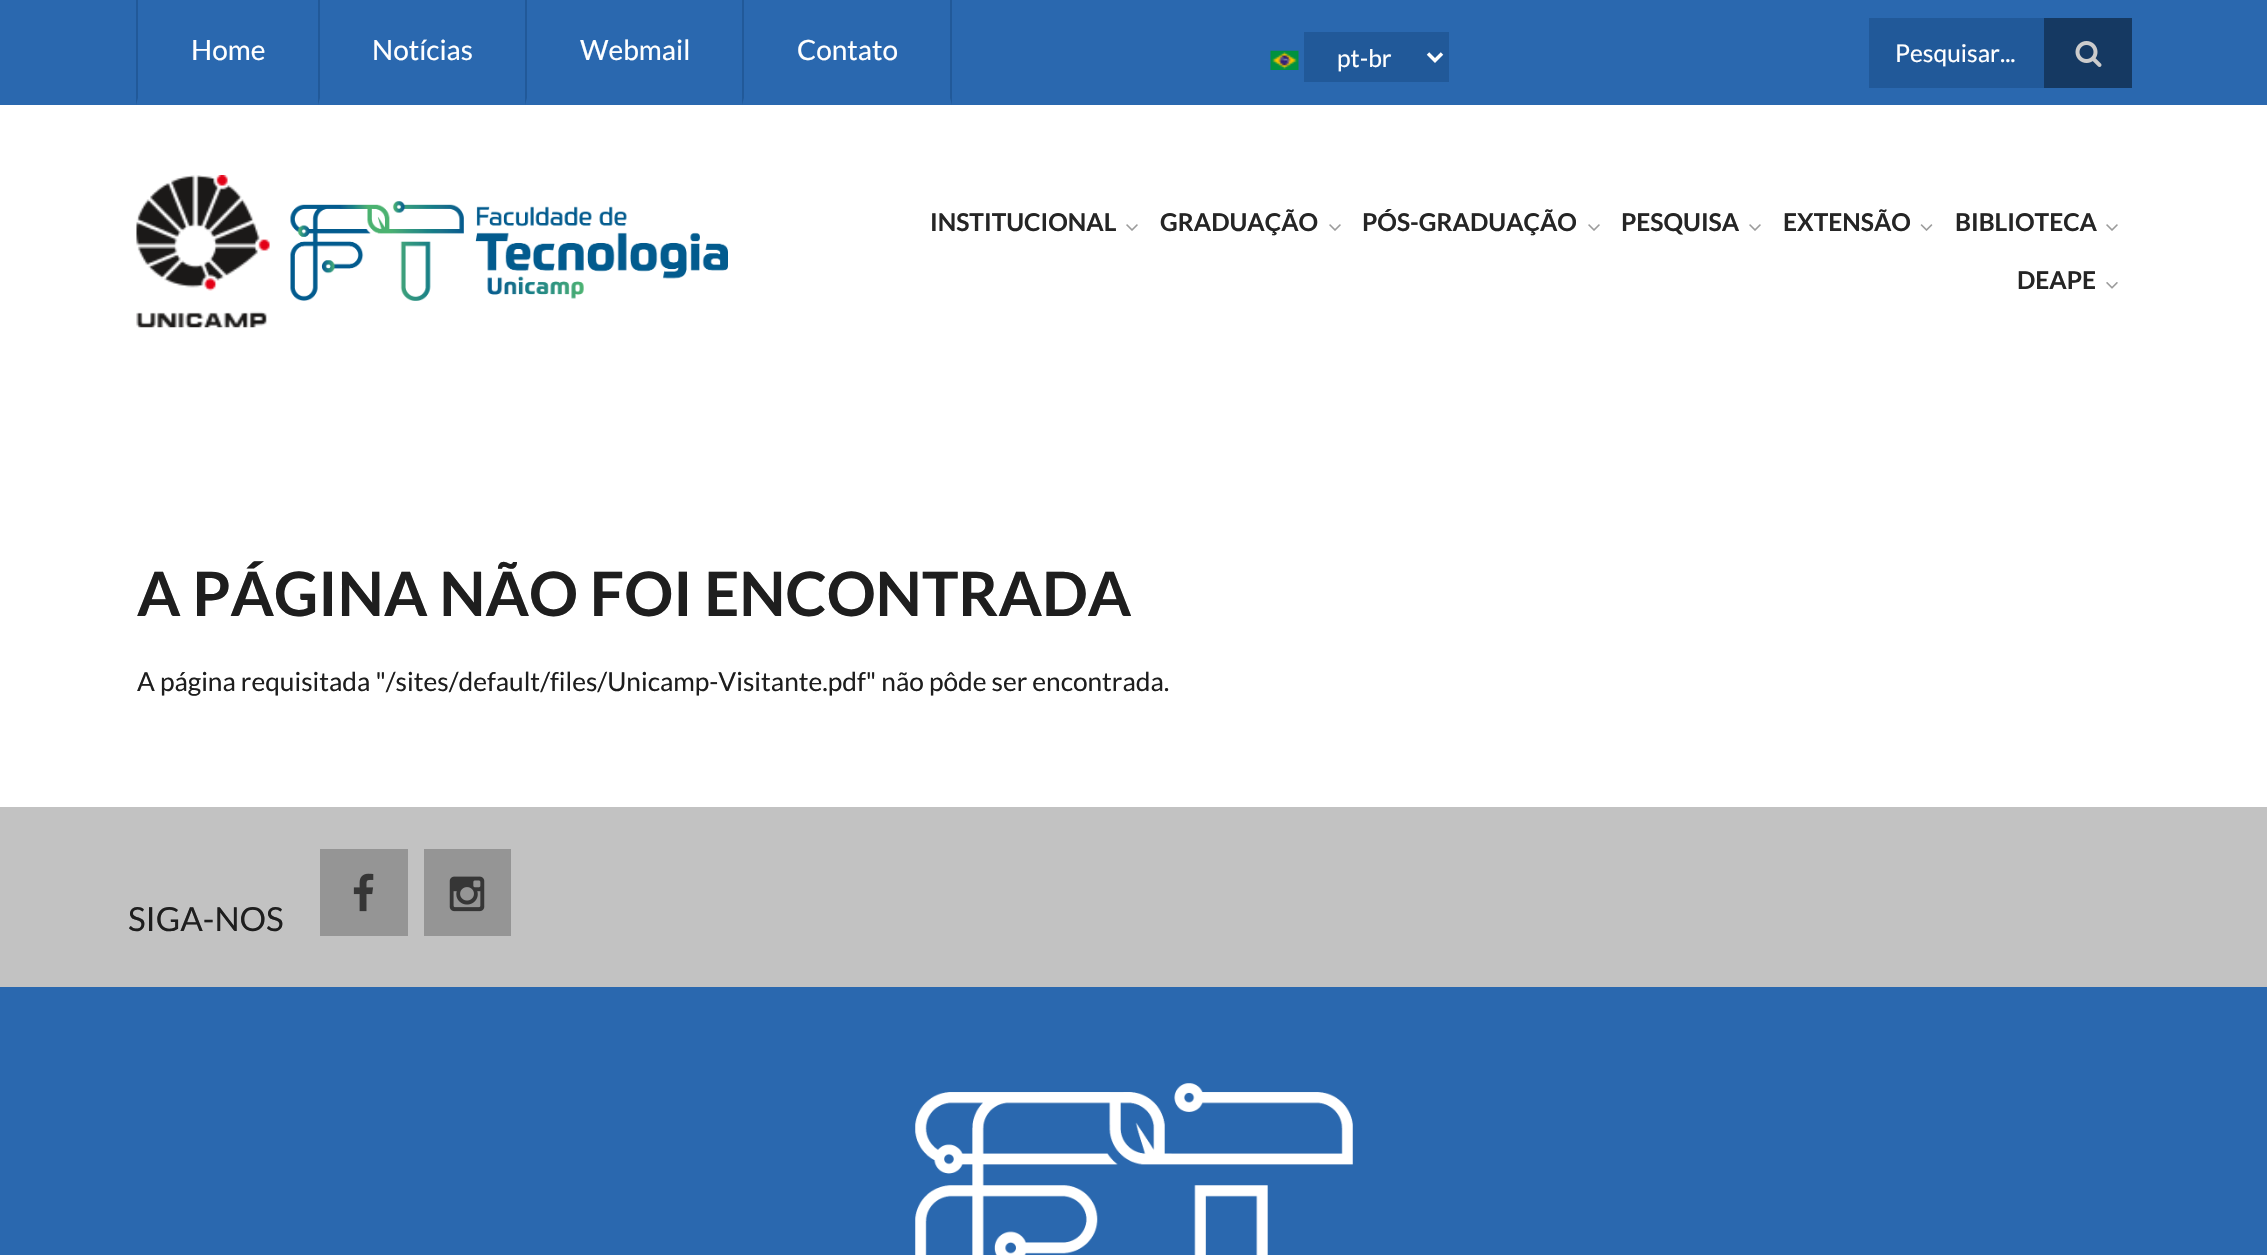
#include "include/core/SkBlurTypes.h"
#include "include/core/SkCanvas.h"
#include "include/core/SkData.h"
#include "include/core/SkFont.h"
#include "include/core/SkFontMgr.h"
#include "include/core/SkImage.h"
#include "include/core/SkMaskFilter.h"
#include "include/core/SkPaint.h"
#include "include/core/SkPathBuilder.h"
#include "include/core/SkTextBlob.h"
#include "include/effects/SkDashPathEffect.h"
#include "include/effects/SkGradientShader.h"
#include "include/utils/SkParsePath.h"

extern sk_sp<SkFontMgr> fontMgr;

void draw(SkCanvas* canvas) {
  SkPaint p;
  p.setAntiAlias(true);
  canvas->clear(SK_ColorWHITE);
  p.setColor(SkColorSetRGB(42, 104, 175));
  canvas->drawRect(SkRect::MakeLTRB(0, 0, 2267, 105), p);
  p.setColor(SkColorSetRGB(33, 89, 153));
  canvas->drawPath(SkPathBuilder().moveTo(136, 105).lineTo(136, 0).lineTo(138, 0).lineTo(138, 98).close().detach(), p);
  canvas->drawPath(SkPathBuilder().moveTo(318, 105).lineTo(318, 0).lineTo(320, 0).lineTo(320, 98).close().detach(), p);
  canvas->drawPath(SkPathBuilder().moveTo(525, 105).lineTo(525, 0).lineTo(527, 0).lineTo(527, 98).close().detach(), p);
  canvas->drawPath(SkPathBuilder().moveTo(952, 0).lineTo(952, 105).lineTo(950, 98).lineTo(950, 0).close().detach(), p);
  canvas->drawPath(SkPathBuilder().moveTo(742, 105).lineTo(742, 0).lineTo(744, 0).lineTo(744, 98).close().detach(), p);
  canvas->drawImageRect(SkImages::DeferredFromEncodedData(SkData::MakeFromFileName("images/1.png")), SkRect::MakeLTRB(1270, 50, 1299, 70), SkSamplingOptions());
  canvas->drawRect(SkRect::MakeLTRB(1304, 32, 1449, 82), p);
  p.setStyle(SkPaint::kStroke_Style);
  p.setStrokeWidth(3.5f);
  p.setColor(SK_ColorWHITE);
  canvas->drawPath(SkPathBuilder().moveTo(1428, 53.5f).lineTo(1435, 60.5f).lineTo(1442, 53.5f).detach(), p);
  p.setStyle(SkPaint::kFill_Style);
  p.setColor(SkColorSetRGB(33, 89, 153));
  canvas->drawRect(SkRect::MakeLTRB(1869, 18, 2044, 88), p);
  p.setColor(SkColorSetRGB(21, 57, 98));
  canvas->drawRect(SkRect::MakeLTRB(2044, 18, 2132, 88), p);
  canvas->drawImageRect(SkImages::DeferredFromEncodedData(SkData::MakeFromFileName("images/2.png")), SkRect::MakeLTRB(2075, 41, 2102, 67), SkSamplingOptions());
  canvas->drawImageRect(SkImages::DeferredFromEncodedData(SkData::MakeFromFileName("images/3.png")), SkRect::MakeLTRB(136, 175, 270, 328), SkSamplingOptions());
  canvas->drawImageRect(SkImages::DeferredFromEncodedData(SkData::MakeFromFileName("images/4.png")), SkRect::MakeLTRB(290, 201, 728, 301), SkSamplingOptions());
  canvas->drawImageRect(SkImages::DeferredFromEncodedData(SkData::MakeFromFileName("images/5.png")), SkRect::MakeLTRB(1126, 224, 1138, 231), SkSamplingOptions());
  canvas->drawImageRect(SkImages::DeferredFromEncodedData(SkData::MakeFromFileName("images/5.png")), SkRect::MakeLTRB(1329, 224, 1341, 231), SkSamplingOptions());
  canvas->drawImageRect(SkImages::DeferredFromEncodedData(SkData::MakeFromFileName("images/5.png")), SkRect::MakeLTRB(1588, 224, 1600, 231), SkSamplingOptions());
  canvas->drawImageRect(SkImages::DeferredFromEncodedData(SkData::MakeFromFileName("images/5.png")), SkRect::MakeLTRB(1749, 224, 1761, 231), SkSamplingOptions());
  canvas->drawImageRect(SkImages::DeferredFromEncodedData(SkData::MakeFromFileName("images/6.png")), SkRect::MakeLTRB(1920, 224, 1933, 231), SkSamplingOptions());
  canvas->drawImageRect(SkImages::DeferredFromEncodedData(SkData::MakeFromFileName("images/5.png")), SkRect::MakeLTRB(2106, 224, 2118, 231), SkSamplingOptions());
  canvas->drawImageRect(SkImages::DeferredFromEncodedData(SkData::MakeFromFileName("images/7.png")), SkRect::MakeLTRB(2106, 282, 2118, 289), SkSamplingOptions());
  p.setColor(SkColorSetRGB(194, 194, 194));
  canvas->drawRect(SkRect::MakeLTRB(0, 807, 2267, 987), p);
  p.setColor(SkColorSetRGB(149, 149, 149));
  canvas->drawRect(SkRect::MakeLTRB(320, 849, 408, 936), p);
  canvas->drawImageRect(SkImages::DeferredFromEncodedData(SkData::MakeFromFileName("images/8.png")), SkRect::MakeLTRB(353, 873, 374, 912), SkSamplingOptions());
  canvas->drawRect(SkRect::MakeLTRB(424, 849, 511, 936), p);
  canvas->drawImageRect(SkImages::DeferredFromEncodedData(SkData::MakeFromFileName("images/9.png")), SkRect::MakeLTRB(449, 876, 485, 912), SkSamplingOptions());
  p.setColor(SkColorSetRGB(42, 104, 175));
  canvas->drawRect(SkRect::MakeLTRB(0, 987, 2267, 1255), p);
  canvas->drawImageRect(SkImages::DeferredFromEncodedData(SkData::MakeFromFileName("images/10.png")), SkRect::MakeLTRB(915, 1083, 1353, 1255), SkSamplingOptions());
  SkFont font1(fontMgr->matchFamilyStyle("Lato", SkFontStyle::Normal()), 28);
  font1.setSubpixel(true);
  p.setColor(SK_ColorWHITE);
  canvas->drawString("Home", 191, 60, font1, p);
  canvas->drawString("Notícias", 372, 60, font1, p);
  canvas->drawString("Webmail", 580, 60, font1, p);
  canvas->drawString("Contato", 797, 60, font1, p);
  SkFont font2(fontMgr->matchFamilyStyle("Lato", SkFontStyle::Normal()), 24.5f);
  font2.setSubpixel(true);
  canvas->drawString("pt-br", 1337, 67, font2, p);
  canvas->drawString("Pesquisar...", 1895, 62, font2, p);
  SkFont font3(fontMgr->matchFamilyStyle("Lato", SkFontStyle::Bold()), 24.5f);
  font3.setSubpixel(true);
  p.setColor(SkColorSetRGB(37, 37, 37));
  canvas->drawString("INSTITUCIONAL", 930, 231, font3, p);
  canvas->drawString("GRADUAÇÃO", 1160, 231, font3, p);
  canvas->drawString("PÓS-GRADUAÇÃO", 1362, 231, font3, p);
  canvas->drawString("PESQUISA", 1621, 231, font3, p);
  canvas->drawString("EXTENSÃO", 1783, 231, font3, p);
  canvas->drawString("BIBLIOTECA", 1955, 231, font3, p);
  canvas->drawString("DEAPE", 2017, 289, font3, p);
  SkFont font4(fontMgr->matchFamilyStyle("Lato", SkFontStyle::Bold()), 61.25f);
  font4.setSubpixel(true);
  p.setColor(SkColorSetRGB(30, 30, 30));
  canvas->drawString("A PÁGINA NÃO FOI ENCONTRADA", 137, 616, font4, p);
  SkFont font5(fontMgr->matchFamilyStyle("Lato", SkFontStyle::Normal()), 26.25f);
  font5.setSubpixel(true);
  canvas->drawString("A página requisitada \"/sites/default/files/Unicamp-Visitante.pdf\" não pôde ser encontrada.", 137, 691, font5, p);
  SkFont font6(fontMgr->matchFamilyStyle("Lato", SkFontStyle::Normal()), 33.25f);
  font6.setSubpixel(true);
  canvas->drawString("SIGA-NOS", 128, 931, font6, p);
}
